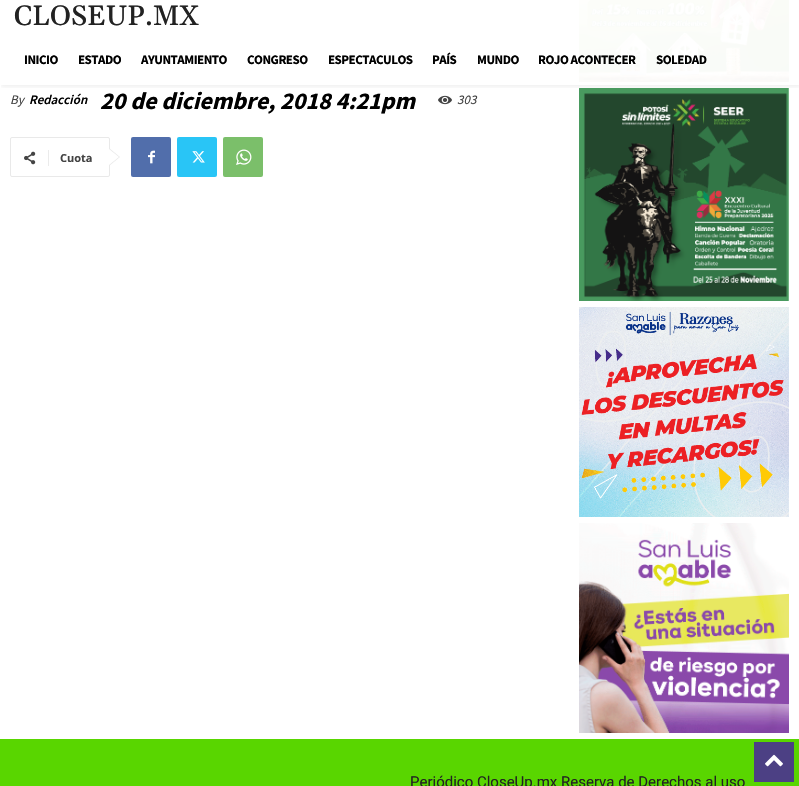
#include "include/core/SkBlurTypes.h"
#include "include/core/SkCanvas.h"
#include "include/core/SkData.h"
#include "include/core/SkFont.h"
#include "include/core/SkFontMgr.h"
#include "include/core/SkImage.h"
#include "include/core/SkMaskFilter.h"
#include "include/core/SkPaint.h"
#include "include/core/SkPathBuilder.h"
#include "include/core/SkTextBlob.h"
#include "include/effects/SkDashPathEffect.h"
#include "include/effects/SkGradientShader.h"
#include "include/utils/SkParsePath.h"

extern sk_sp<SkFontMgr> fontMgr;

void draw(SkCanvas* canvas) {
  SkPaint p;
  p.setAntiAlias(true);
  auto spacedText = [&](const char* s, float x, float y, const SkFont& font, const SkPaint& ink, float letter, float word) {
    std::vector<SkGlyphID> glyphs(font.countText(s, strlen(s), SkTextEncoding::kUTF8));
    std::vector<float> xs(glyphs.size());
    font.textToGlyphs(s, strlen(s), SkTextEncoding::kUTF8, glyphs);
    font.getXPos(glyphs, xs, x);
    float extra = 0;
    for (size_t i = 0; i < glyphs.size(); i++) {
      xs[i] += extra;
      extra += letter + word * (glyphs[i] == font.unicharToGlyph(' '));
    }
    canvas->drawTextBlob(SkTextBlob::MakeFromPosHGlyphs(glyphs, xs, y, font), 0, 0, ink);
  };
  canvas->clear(SK_ColorWHITE);
  canvas->drawImageRect(SkImages::DeferredFromEncodedData(SkData::MakeFromFileName("images/6.png")), SkRect::MakeLTRB(579, 0, 789, 82), SkSamplingOptions());
  canvas->drawImageRect(SkImages::DeferredFromEncodedData(SkData::MakeFromFileName("images/7.png")), SkRect::MakeLTRB(579, 88, 789, 301), SkSamplingOptions());
  canvas->save();
  canvas->clipRect(SkRect::MakeLTRB(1, 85, 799, 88));
  p.setColor(SkColorSetARGB(15, 0, 0, 0));
  p.setMaskFilter(SkMaskFilter::MakeBlur(kNormal_SkBlurStyle, 2));
  canvas->drawRect(SkRect::MakeLTRB(1, 2, 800, 87), p);
  p.setMaskFilter(nullptr);
  canvas->restore();
  canvas->drawImageRect(SkImages::DeferredFromEncodedData(SkData::MakeFromFileName("images/1.png")), SkRect::MakeLTRB(438, 95, 452, 105), SkSamplingOptions());
  p.setStyle(SkPaint::kStroke_Style);
  p.setStrokeWidth(1);
  p.setColor(SkColorSetRGB(233, 233, 233));
  canvas->drawRoundRect(SkRect::MakeLTRB(10.5f, 137.5f, 109.5f, 176.5f), 1.5f, 1.5f, p);
  p.setStyle(SkPaint::kFill_Style);
  canvas->drawPath(SkPathBuilder().moveTo(109, 166).lineTo(109, 148).lineTo(120, 157).close().detach(), p);
  canvas->drawImageRect(SkImages::DeferredFromEncodedData(SkData::MakeFromFileName("images/2.png")), SkRect::MakeLTRB(24, 151, 36, 165), SkSamplingOptions());
  p.setColor(SkColorSetRGB(235, 235, 235));
  canvas->drawRect(SkRect::MakeLTRB(48, 150, 49, 166), p);
  p.setColor(SK_ColorWHITE);
  canvas->drawPath(SkPathBuilder().moveTo(109, 165).lineTo(109, 149).lineTo(119, 157).close().detach(), p);
  p.setColor(SkColorSetRGB(81, 110, 171));
  canvas->drawRoundRect(SkRect::MakeLTRB(131, 137, 171, 177), 2, 2, p);
  canvas->drawImageRect(SkImages::DeferredFromEncodedData(SkData::MakeFromFileName("images/3.png")), SkRect::MakeLTRB(148, 150, 155, 164), SkSamplingOptions());
  p.setColor(SkColorSetRGB(41, 197, 246));
  canvas->drawRoundRect(SkRect::MakeLTRB(177, 137, 217, 177), 2, 2, p);
  canvas->drawImageRect(SkImages::DeferredFromEncodedData(SkData::MakeFromFileName("images/4.png")), SkRect::MakeLTRB(192, 151, 205, 163), SkSamplingOptions());
  p.setColor(SkColorSetRGB(123, 191, 106));
  canvas->drawRoundRect(SkRect::MakeLTRB(223, 137, 263, 177), 2, 2, p);
  canvas->drawImageRect(SkImages::DeferredFromEncodedData(SkData::MakeFromFileName("images/5.png")), SkRect::MakeLTRB(236, 149, 252, 165), SkSamplingOptions());
  canvas->drawImageRect(SkImages::DeferredFromEncodedData(SkData::MakeFromFileName("images/8.png")), SkRect::MakeLTRB(579, 307, 789, 517), SkSamplingOptions());
  canvas->drawImageRect(SkImages::DeferredFromEncodedData(SkData::MakeFromFileName("images/9.png")), SkRect::MakeLTRB(579, 523, 789, 733), SkSamplingOptions());
  p.setColor(SkColorSetRGB(89, 214, 0));
  canvas->drawRect(SkRect::MakeLTRB(0, 739, 799, 786), p);
  p.setColor(SkColorSetRGB(76, 64, 132));
  canvas->drawRect(SkRect::MakeLTRB(754, 742, 794, 782), p);
  canvas->drawImageRect(SkImages::DeferredFromEncodedData(SkData::MakeFromFileName("images/10.png")), SkRect::MakeLTRB(765, 754, 783, 767), SkSamplingOptions());
  SkFont font1(fontMgr->matchFamilyStyle("Gelasio", SkFontStyle(500, SkFontStyle::kNormal_Width, SkFontStyle::kUpright_Slant)), 28);
  font1.setSubpixel(true);
  p.setColor(SkColorSetRGB(34, 34, 34));
  canvas->drawString("CLOSEUP.MX", 14, 25, font1, p);
  SkFont font2(fontMgr->matchFamilyStyle("Source Sans Pro", SkFontStyle::Bold()), 13);
  font2.setSubpixel(true);
  p.setColor(SK_ColorBLACK);
  spacedText("INICIO", 24, 64, font2, p, -0.5f, 0);
  spacedText("ESTADO", 78, 64, font2, p, -0.5f, 0);
  spacedText("AYUNTAMIENTO", 141, 64, font2, p, -0.5f, 0);
  spacedText("CONGRESO", 247, 64, font2, p, -0.5f, 0);
  spacedText("ESPECTACULOS", 328, 64, font2, p, -0.5f, 0);
  spacedText("PAÍS", 432, 64, font2, p, -0.5f, 0);
  spacedText("MUNDO", 477, 64, font2, p, -0.5f, 0);
  spacedText("ROJO ACONTECER", 538, 64, font2, p, -0.5f, 0);
  spacedText("SOLEDAD", 656, 64, font2, p, -0.5f, 0);
  SkFont font3(fontMgr->matchFamilyStyle("Source Sans Pro", SkFontStyle::Italic()), 13);
  font3.setSubpixel(true);
  p.setColor(SkColorSetRGB(68, 68, 68));
  canvas->drawString("By", 10, 104, font3, p);
  SkFont font4(fontMgr->matchFamilyStyle("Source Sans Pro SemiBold", SkFontStyle(600, SkFontStyle::kNormal_Width, SkFontStyle::kItalic_Slant)), 13);
  font4.setSubpixel(true);
  p.setColor(SK_ColorBLACK);
  canvas->drawString("Redacción", 29, 104, font4, p);
  SkFont font5(fontMgr->matchFamilyStyle("Source Sans Pro", SkFontStyle::BoldItalic()), 24);
  font5.setSubpixel(true);
  canvas->drawString("20 de diciembre, 2018 4:21pm", 100, 109, font5, p);
  p.setColor(SkColorSetRGB(68, 68, 68));
  canvas->drawString("303", 457, 104, font3, p);
  SkFont font6(fontMgr->matchFamilyStyle("Open Sans", SkFontStyle::Bold()), 11);
  font6.setSubpixel(true);
  canvas->drawString("Cuota", 60, 162, font6, p);
  SkFont font7(fontMgr->matchFamilyStyle("Roboto", SkFontStyle::Normal()), 15);
  font7.setSubpixel(true);
  p.setColor(SkColorSetRGB(34, 34, 34));
  canvas->drawString("Periódico CloseUp.mx Reserva de Derechos al uso", 410, 787, font7, p);
}
